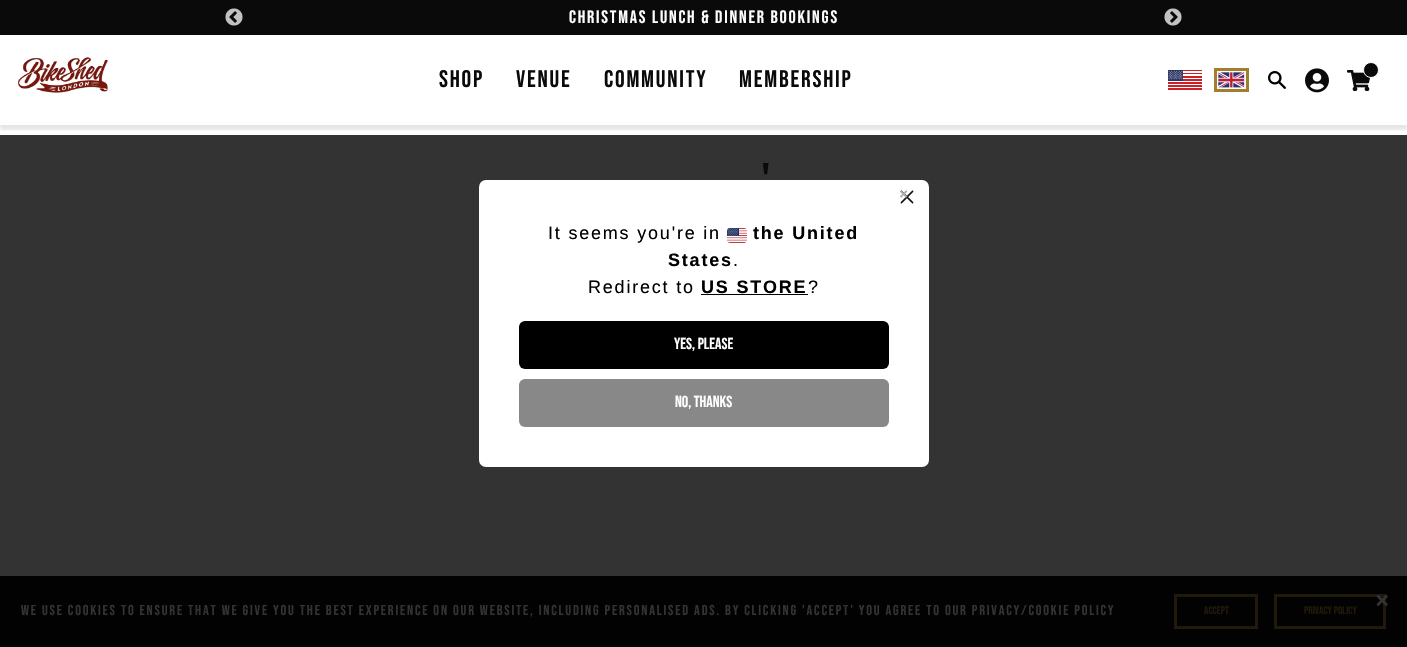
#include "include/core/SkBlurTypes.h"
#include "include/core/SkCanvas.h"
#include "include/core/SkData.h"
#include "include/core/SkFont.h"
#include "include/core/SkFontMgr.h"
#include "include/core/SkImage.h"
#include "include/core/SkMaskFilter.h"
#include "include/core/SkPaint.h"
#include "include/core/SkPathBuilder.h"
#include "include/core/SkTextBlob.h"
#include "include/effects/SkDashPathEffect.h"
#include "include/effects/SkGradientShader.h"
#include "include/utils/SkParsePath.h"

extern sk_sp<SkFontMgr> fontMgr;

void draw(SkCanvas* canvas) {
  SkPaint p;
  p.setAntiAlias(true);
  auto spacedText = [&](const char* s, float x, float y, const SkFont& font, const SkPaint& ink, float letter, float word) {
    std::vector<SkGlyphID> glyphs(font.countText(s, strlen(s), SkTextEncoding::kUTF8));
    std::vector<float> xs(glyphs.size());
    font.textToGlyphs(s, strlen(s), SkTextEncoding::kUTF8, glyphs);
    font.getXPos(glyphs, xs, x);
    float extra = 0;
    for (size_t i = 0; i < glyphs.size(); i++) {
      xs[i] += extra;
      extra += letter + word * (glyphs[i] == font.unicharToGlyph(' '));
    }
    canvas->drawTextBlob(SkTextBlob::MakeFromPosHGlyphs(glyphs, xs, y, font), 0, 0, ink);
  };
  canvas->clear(SK_ColorWHITE);
  p.setColor(SkColorSetRGB(51, 51, 51));
  canvas->drawRect(SkRect::MakeLTRB(0, 135, 1407, 576), p);
  p.setColor(SkColorSetRGB(10, 10, 10));
  canvas->drawRect(SkRect::MakeLTRB(0, 0, 1407, 35), p);
  canvas->drawImageRect(SkImages::DeferredFromEncodedData(SkData::MakeFromFileName("images/1.png")), SkRect::MakeLTRB(225, 8, 243, 26), SkSamplingOptions());
  canvas->drawImageRect(SkImages::DeferredFromEncodedData(SkData::MakeFromFileName("images/2.png")), SkRect::MakeLTRB(1164, 8, 1182, 26), SkSamplingOptions());
  canvas->save();
  canvas->clipRect(SkRect::MakeLTRB(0, 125, 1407, 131));
  p.setColor(SkColorSetARGB(26, 10, 10, 10));
  p.setMaskFilter(SkMaskFilter::MakeBlur(kNormal_SkBlurStyle, 1.5f));
  canvas->drawRect(SkRect::MakeLTRB(0, 40, 1407, 130), p);
  p.setMaskFilter(nullptr);
  canvas->restore();
  canvas->drawImageRect(SkImages::DeferredFromEncodedData(SkData::MakeFromFileName("images/3.png")), SkRect::MakeLTRB(18, 57, 108, 93), SkSamplingOptions());
  canvas->drawImageRect(SkImages::DeferredFromEncodedData(SkData::MakeFromFileName("images/4.png")), SkRect::MakeLTRB(1168, 70, 1202, 90), SkSamplingOptions());
  p.setStyle(SkPaint::kStroke_Style);
  p.setStrokeWidth(3);
  p.setColor(SkColorSetRGB(163, 126, 44));
  canvas->drawRect(SkRect::MakeLTRB(1215.5f, 69.5f, 1247.5f, 90.5f), p);
  canvas->drawImageRect(SkImages::DeferredFromEncodedData(SkData::MakeFromFileName("images/5.png")), SkRect::MakeLTRB(1218, 72, 1245, 88), SkSamplingOptions());
  canvas->drawImageRect(SkImages::DeferredFromEncodedData(SkData::MakeFromFileName("images/6.png")), SkRect::MakeLTRB(1268, 71, 1286, 89), SkSamplingOptions());
  canvas->drawImageRect(SkImages::DeferredFromEncodedData(SkData::MakeFromFileName("images/7.png")), SkRect::MakeLTRB(1305, 68, 1329, 93), SkSamplingOptions());
  canvas->drawImageRect(SkImages::DeferredFromEncodedData(SkData::MakeFromFileName("images/8.png")), SkRect::MakeLTRB(1347, 70, 1371, 91), SkSamplingOptions());
  p.setStyle(SkPaint::kFill_Style);
  p.setColor(SkColorSetRGB(10, 10, 10));
  canvas->drawCircle(1371, 70, 7.5f, p);
  p.setStyle(SkPaint::kStroke_Style);
  p.setStrokeWidth(1);
  p.setColor(SkColorSetRGB(254, 254, 254));
  canvas->drawCircle(1371, 70, 7.5f, p);
  p.setStyle(SkPaint::kFill_Style);
  p.setColor(SK_ColorWHITE);
  canvas->drawRoundRect(SkRect::MakeLTRB(479, 180, 929, 467), 7, 7, p);
  canvas->drawImageRect(SkImages::DeferredFromEncodedData(SkData::MakeFromFileName("images/9.png")), SkRect::MakeLTRB(900, 190, 914, 204), SkSamplingOptions());
  canvas->drawImageRect(SkImages::DeferredFromEncodedData(SkData::MakeFromFileName("images/10.png")), SkRect::MakeLTRB(727, 228, 747, 243), SkSamplingOptions());
  p.setColor(SK_ColorBLACK);
  canvas->drawRect(SkRect::MakeLTRB(701, 294, 808, 295), p);
  canvas->drawRoundRect(SkRect::MakeLTRB(519, 321, 889, 369), 6, 6, p);
  p.setColor(SkColorSetRGB(136, 136, 136));
  canvas->drawRoundRect(SkRect::MakeLTRB(519, 379, 889, 427), 6, 6, p);
  p.setColor(SkColorSetRGB(2, 2, 2));
  canvas->drawRect(SkRect::MakeLTRB(0, 576, 1407, 647), p);
  p.setStyle(SkPaint::kStroke_Style);
  p.setStrokeWidth(3);
  p.setColor(SkColorSetRGB(33, 25, 9));
  canvas->drawRect(SkRect::MakeLTRB(1175.5f, 595.5f, 1256.5f, 627.5f), p);
  canvas->drawRect(SkRect::MakeLTRB(1275.5f, 595.5f, 1384.5f, 627.5f), p);
  SkFont font1(fontMgr->matchFamilyStyle("Bebas Neue", SkFontStyle::Normal()), 18);
  font1.setSubpixel(true);
  p.setStyle(SkPaint::kFill_Style);
  p.setColor(SkColorSetRGB(254, 254, 254));
  spacedText("CHRISTMAS LUNCH & DINNER BOOKINGS", 569, 23, font1, p, 1.8f, 0);
  SkFont font2(fontMgr->matchFamilyStyle("Bebas Neue", SkFontStyle::Normal()), 24);
  font2.setSubpixel(true);
  p.setColor(SkColorSetRGB(10, 10, 10));
  spacedText("Shop", 439, 87, font2, p, 1.8f, 0);
  spacedText("Venue", 516, 87, font2, p, 1.8f, 0);
  spacedText("Community", 604, 87, font2, p, 1.8f, 0);
  spacedText("Membership", 739, 87, font2, p, 1.8f, 0);
  SkFont font3(fontMgr->matchFamilyStyle("Bebas Neue", SkFontStyle::Normal()), 50);
  font3.setSubpixel(true);
  spacedText("'", 761, 198, font3, p, 1.8f, 0);
  SkFont font4(fontMgr->matchFamilyStyle("Bebas Neue", SkFontStyle::Normal()), 23);
  font4.setSubpixel(true);
  p.setColor(SkColorSetRGB(175, 176, 176));
  spacedText("×", 899, 202, font4, p, 1.8f, 0);
  SkFont font5(fontMgr->matchFamilyStyle("Liberation Sans", SkFontStyle::Normal()), 18);
  font5.setSubpixel(true);
  p.setColor(SK_ColorBLACK);
  spacedText("It seems you're in", 548, 239, font5, p, 1.8f, 0);
  SkFont font6(fontMgr->matchFamilyStyle("Liberation Sans", SkFontStyle::Bold()), 18);
  font6.setSubpixel(true);
  spacedText("the United", 753, 239, font6, p, 1.8f, 0);
  spacedText("States", 668, 266, font6, p, 1.8f, 0);
  spacedText(".", 733, 266, font5, p, 1.8f, 0);
  spacedText("Redirect to", 588, 293, font5, p, 1.8f, 0);
  spacedText("US STORE", 701, 293, font6, p, 1.8f, 0);
  spacedText("?", 808, 293, font5, p, 1.8f, 0);
  SkFont font7(fontMgr->matchFamilyStyle("Bebas Neue", SkFontStyle::Normal()), 16);
  font7.setSubpixel(true);
  p.setColor(SkColorSetRGB(254, 254, 254));
  canvas->drawString("Yes, please", 674, 349, font7, p);
  canvas->drawString("No, thanks", 675, 407, font7, p);
  SkFont font8(fontMgr->matchFamilyStyle("Bebas Neue", SkFontStyle::Normal()), 36);
  font8.setSubpixel(true);
  p.setColor(SkColorSetRGB(51, 51, 51));
  canvas->drawString("×", 1375, 613, font8, p);
  SkFont font9(fontMgr->matchFamilyStyle("Bebas Neue", SkFontStyle::Normal()), 14.4f);
  font9.setSubpixel(true);
  spacedText("We use cookies to ensure that we give you the best experience on our website, including personalised ads. By clicking 'Accept' you agree to our Privacy/Cookie Policy", 21, 615, font9, p, 1.8f, 0);
  SkFont font10(fontMgr->matchFamilyStyle("Bebas Neue", SkFontStyle::Normal()), 11);
  font10.setSubpixel(true);
  p.setColor(SkColorSetRGB(33, 25, 9));
  canvas->drawString("Accept", 1204, 614, font10, p);
  canvas->drawString("Privacy Policy", 1304, 614, font10, p);
}
